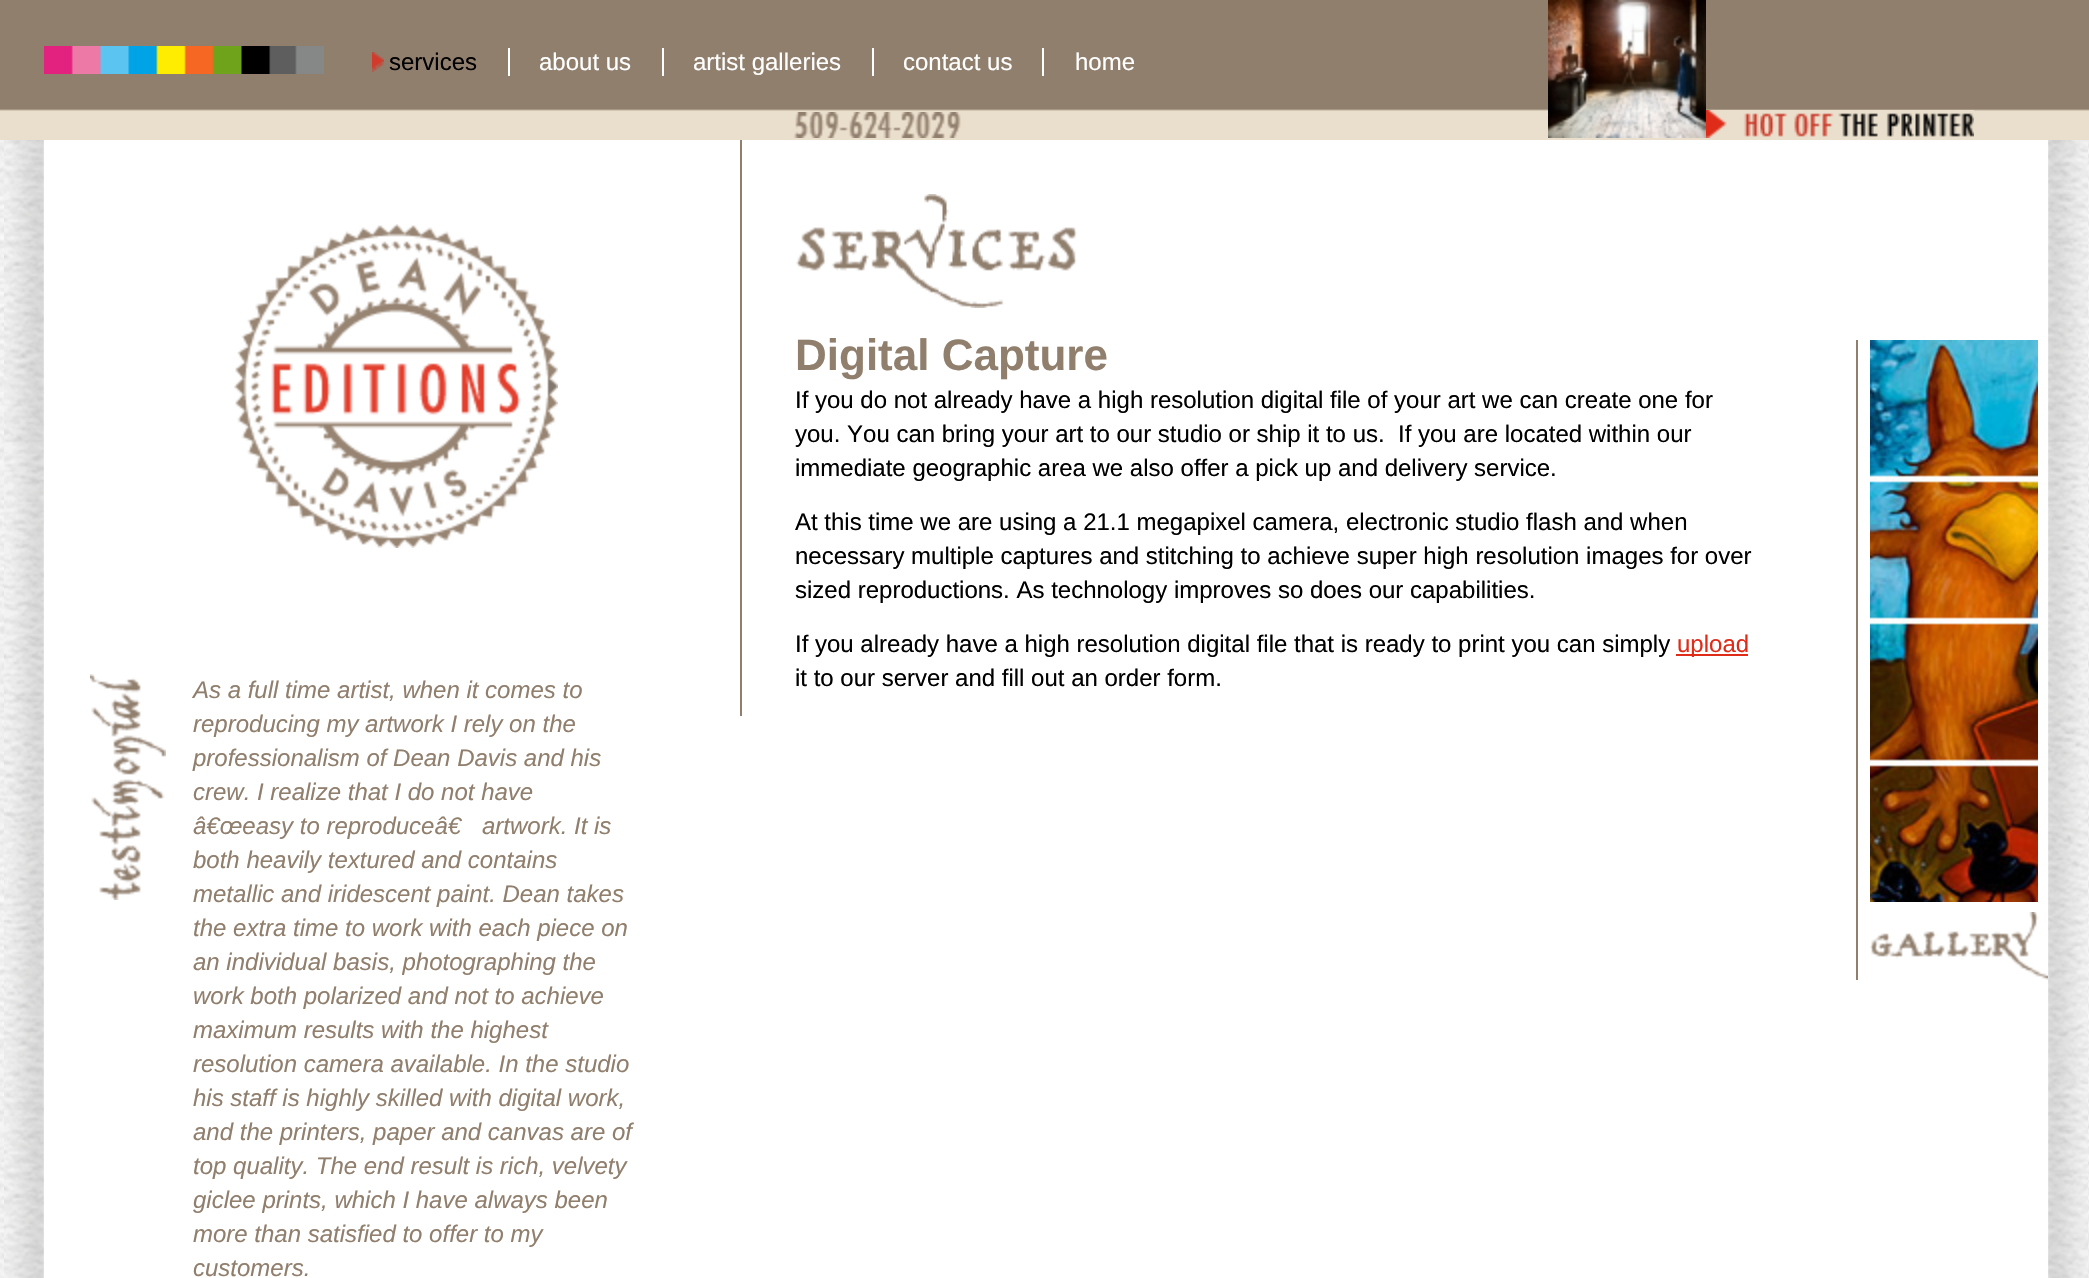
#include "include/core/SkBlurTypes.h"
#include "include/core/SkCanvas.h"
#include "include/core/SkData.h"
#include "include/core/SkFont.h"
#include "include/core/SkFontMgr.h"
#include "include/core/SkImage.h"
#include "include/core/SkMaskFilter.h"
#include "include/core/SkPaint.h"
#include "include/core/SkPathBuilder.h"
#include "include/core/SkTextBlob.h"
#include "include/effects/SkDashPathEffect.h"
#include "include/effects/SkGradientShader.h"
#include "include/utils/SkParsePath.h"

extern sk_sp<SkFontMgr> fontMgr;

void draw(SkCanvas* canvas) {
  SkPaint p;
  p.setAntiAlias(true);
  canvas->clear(SK_ColorWHITE);
  canvas->drawImageRect(SkImages::DeferredFromEncodedData(SkData::MakeFromFileName("images/1.png")), SkRect::MakeLTRB(0, 140, 2089, 1278), SkSamplingOptions());
  p.setColor(SkColorSetRGB(234, 223, 204));
  canvas->drawRect(SkRect::MakeLTRB(0, 111, 2089, 140), p);
  canvas->drawImageRect(SkImages::DeferredFromEncodedData(SkData::MakeFromFileName("images/2.png")), SkRect::MakeLTRB(0, 0, 2089, 111), SkSamplingOptions());
  canvas->drawImageRect(SkImages::DeferredFromEncodedData(SkData::MakeFromFileName("images/3.png")), SkRect::MakeLTRB(44, 46, 324, 74), SkSamplingOptions());
  canvas->drawImageRect(SkImages::DeferredFromEncodedData(SkData::MakeFromFileName("images/4.png")), SkRect::MakeLTRB(372, 54, 384, 72), SkSamplingOptions());
  canvas->drawImageRect(SkImages::DeferredFromEncodedData(SkData::MakeFromFileName("images/5.png")), SkRect::MakeLTRB(372, 52, 384, 70), SkSamplingOptions());
  p.setColor(SK_ColorWHITE);
  canvas->drawRect(SkRect::MakeLTRB(508, 48, 510, 76), p);
  canvas->drawRect(SkRect::MakeLTRB(662, 48, 664, 76), p);
  canvas->drawRect(SkRect::MakeLTRB(872, 48, 874, 76), p);
  canvas->drawRect(SkRect::MakeLTRB(1042, 48, 1044, 76), p);
  canvas->drawImageRect(SkImages::DeferredFromEncodedData(SkData::MakeFromFileName("images/6.png")), SkRect::MakeLTRB(794, 112, 961, 138), SkSamplingOptions());
  canvas->drawImageRect(SkImages::DeferredFromEncodedData(SkData::MakeFromFileName("images/7.png")), SkRect::MakeLTRB(1548, 0, 1706, 138), SkSamplingOptions());
  canvas->drawImageRect(SkImages::DeferredFromEncodedData(SkData::MakeFromFileName("images/8.png")), SkRect::MakeLTRB(1706, 110, 1974, 138), SkSamplingOptions());
  canvas->drawImageRect(SkImages::DeferredFromEncodedData(SkData::MakeFromFileName("images/9.png")), SkRect::MakeLTRB(4, 140, 2088, 1278), SkSamplingOptions());
  canvas->drawRect(SkRect::MakeLTRB(44, 140, 2048, 1278), p);
  canvas->drawImageRect(SkImages::DeferredFromEncodedData(SkData::MakeFromFileName("images/10.png")), SkRect::MakeLTRB(234, 224, 558, 548), SkSamplingOptions());
  canvas->drawImageRect(SkImages::DeferredFromEncodedData(SkData::MakeFromFileName("images/11.png")), SkRect::MakeLTRB(90, 674, 166, 900), SkSamplingOptions());
  p.setColor(SkColorSetRGB(145, 127, 110));
  canvas->drawRect(SkRect::MakeLTRB(740, 140, 742, 716), p);
  canvas->drawImageRect(SkImages::DeferredFromEncodedData(SkData::MakeFromFileName("images/12.png")), SkRect::MakeLTRB(796, 194, 1077, 308), SkSamplingOptions());
  p.setColor(SkColorSetRGB(223, 44, 25));
  canvas->drawRect(SkRect::MakeLTRB(1676, 654, 1748, 656), p);
  canvas->drawImageRect(SkImages::DeferredFromEncodedData(SkData::MakeFromFileName("images/13.png")), SkRect::MakeLTRB(1870, 912, 2048, 980), SkSamplingOptions());
  p.setColor(SkColorSetRGB(145, 127, 110));
  canvas->drawRect(SkRect::MakeLTRB(1856, 340, 1858, 980), p);
  canvas->drawImageRect(SkImages::DeferredFromEncodedData(SkData::MakeFromFileName("images/14.png")), SkRect::MakeLTRB(1870, 340, 2038, 902), SkSamplingOptions());
  SkFont font1(fontMgr->matchFamilyStyle("Liberation Sans", SkFontStyle::Normal()), 24);
  font1.setSubpixel(true);
  p.setColor(SK_ColorBLACK);
  canvas->drawString("services", 389, 70, font1, p);
  p.setColor(SK_ColorWHITE);
  canvas->drawString("about us", 539, 70, font1, p);
  canvas->drawString("artist galleries", 693, 70, font1, p);
  canvas->drawString("contact us", 903, 70, font1, p);
  canvas->drawString("home", 1075, 70, font1, p);
  SkFont font2(fontMgr->matchFamilyStyle("Liberation Sans", SkFontStyle::Italic()), 24);
  font2.setSubpixel(true);
  p.setColor(SkColorSetRGB(145, 127, 110));
  canvas->drawString("As a full time artist, when it comes to", 193, 698, font2, p);
  canvas->drawString("reproducing my artwork I rely on the", 193, 732, font2, p);
  canvas->drawString("professionalism of Dean Davis and his", 193, 766, font2, p);
  canvas->drawString("crew. I realize that I do not have", 193, 800, font2, p);
  canvas->drawString("â€œeasy to reproduceâ€", 193, 834, font2, p);
  canvas->drawString("artwork. It is", 482, 834, font2, p);
  canvas->drawString("both heavily textured and contains", 193, 868, font2, p);
  canvas->drawString("metallic and iridescent paint. Dean takes", 193, 902, font2, p);
  canvas->drawString("the extra time to work with each piece on", 193, 936, font2, p);
  canvas->drawString("an individual basis, photographing the", 193, 970, font2, p);
  canvas->drawString("work both polarized and not to achieve", 193, 1004, font2, p);
  canvas->drawString("maximum results with the highest", 193, 1038, font2, p);
  canvas->drawString("resolution camera available. In the studio", 193, 1072, font2, p);
  canvas->drawString("his staff is highly skilled with digital work,", 193, 1106, font2, p);
  canvas->drawString("and the printers, paper and canvas are of", 193, 1140, font2, p);
  canvas->drawString("top quality. The end result is rich, velvety", 193, 1174, font2, p);
  canvas->drawString("giclee prints, which I have always been", 193, 1208, font2, p);
  canvas->drawString("more than satisfied to offer to my", 193, 1242, font2, p);
  canvas->drawString("customers.", 193, 1276, font2, p);
  SkFont font3(fontMgr->matchFamilyStyle("Liberation Sans", SkFontStyle::Bold()), 44);
  font3.setSubpixel(true);
  canvas->drawString("Digital Capture", 795, 370, font3, p);
  p.setColor(SK_ColorBLACK);
  canvas->drawString("If you do not already have a high resolution digital file of your art we can create one for", 795, 408, font1, p);
  canvas->drawString("you. You can bring your art to our studio or ship it to us.  If you are located within our", 795, 442, font1, p);
  canvas->drawString("immediate geographic area we also offer a pick up and delivery service.", 795, 476, font1, p);
  canvas->drawString("At this time we are using a 21.1 megapixel camera, electronic studio flash and when", 795, 530, font1, p);
  canvas->drawString("necessary multiple captures and stitching to achieve super high resolution images for over", 795, 564, font1, p);
  canvas->drawString("sized reproductions. As technology improves so does our capabilities.", 795, 598, font1, p);
  canvas->drawString("If you already have a high resolution digital file that is ready to print you can simply", 795, 652, font1, p);
  p.setColor(SkColorSetRGB(223, 44, 25));
  canvas->drawString("upload", 1677, 652, font1, p);
  p.setColor(SK_ColorBLACK);
  canvas->drawString("it to our server and fill out an order form.", 795, 686, font1, p);
}
